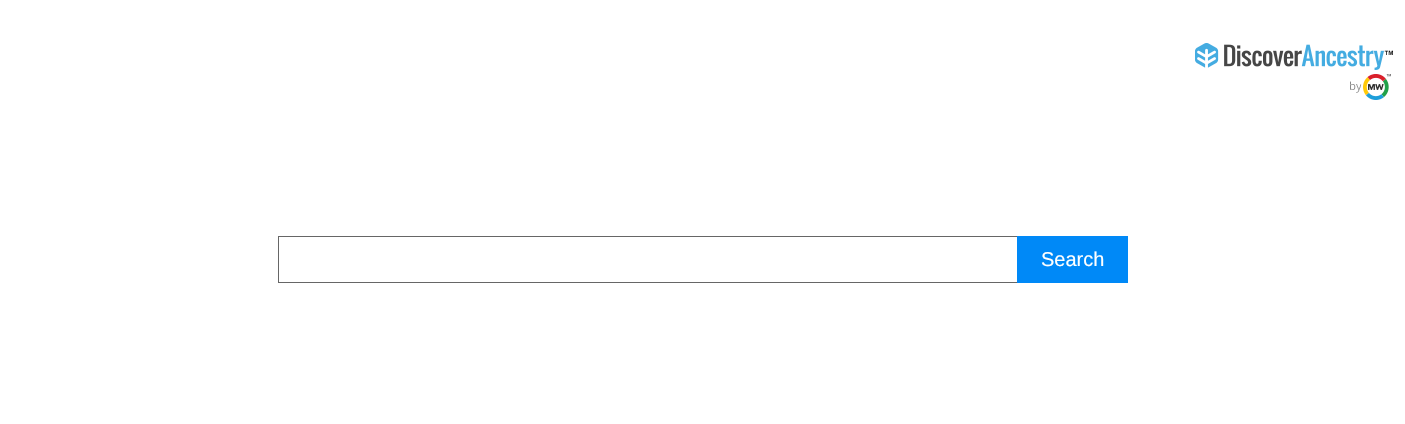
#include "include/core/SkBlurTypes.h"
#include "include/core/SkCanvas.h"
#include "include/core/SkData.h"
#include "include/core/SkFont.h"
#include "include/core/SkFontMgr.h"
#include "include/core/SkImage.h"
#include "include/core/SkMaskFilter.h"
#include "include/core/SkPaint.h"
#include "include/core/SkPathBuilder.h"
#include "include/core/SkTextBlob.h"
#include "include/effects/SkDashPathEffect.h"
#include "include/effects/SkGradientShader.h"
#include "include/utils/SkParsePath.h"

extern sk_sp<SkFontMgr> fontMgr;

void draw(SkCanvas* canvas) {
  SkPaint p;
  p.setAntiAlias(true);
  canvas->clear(SK_ColorWHITE);
  canvas->drawImageRect(SkImages::DeferredFromEncodedData(SkData::MakeFromFileName("images/1.png")), SkRect::MakeLTRB(1195, 43, 1393, 100), SkSamplingOptions());
  p.setColor(SkColorSetRGB(102, 102, 102));
  canvas->drawRect(SkRect::MakeLTRB(278, 236, 1017, 237), p);
  canvas->drawRect(SkRect::MakeLTRB(278, 282, 1017, 283), p);
  canvas->drawRect(SkRect::MakeLTRB(278, 236, 279, 283), p);
  p.setColor(SkColorSetRGB(0, 137, 247));
  canvas->drawRect(SkRect::MakeLTRB(1017, 236, 1128, 283), p);
  SkFont font1(fontMgr->matchFamilyStyle("Liberation Sans", SkFontStyle::Normal()), 20);
  font1.setSubpixel(true);
  p.setColor(SK_ColorWHITE);
  canvas->drawString("Search", 1041, 266, font1, p);
}
